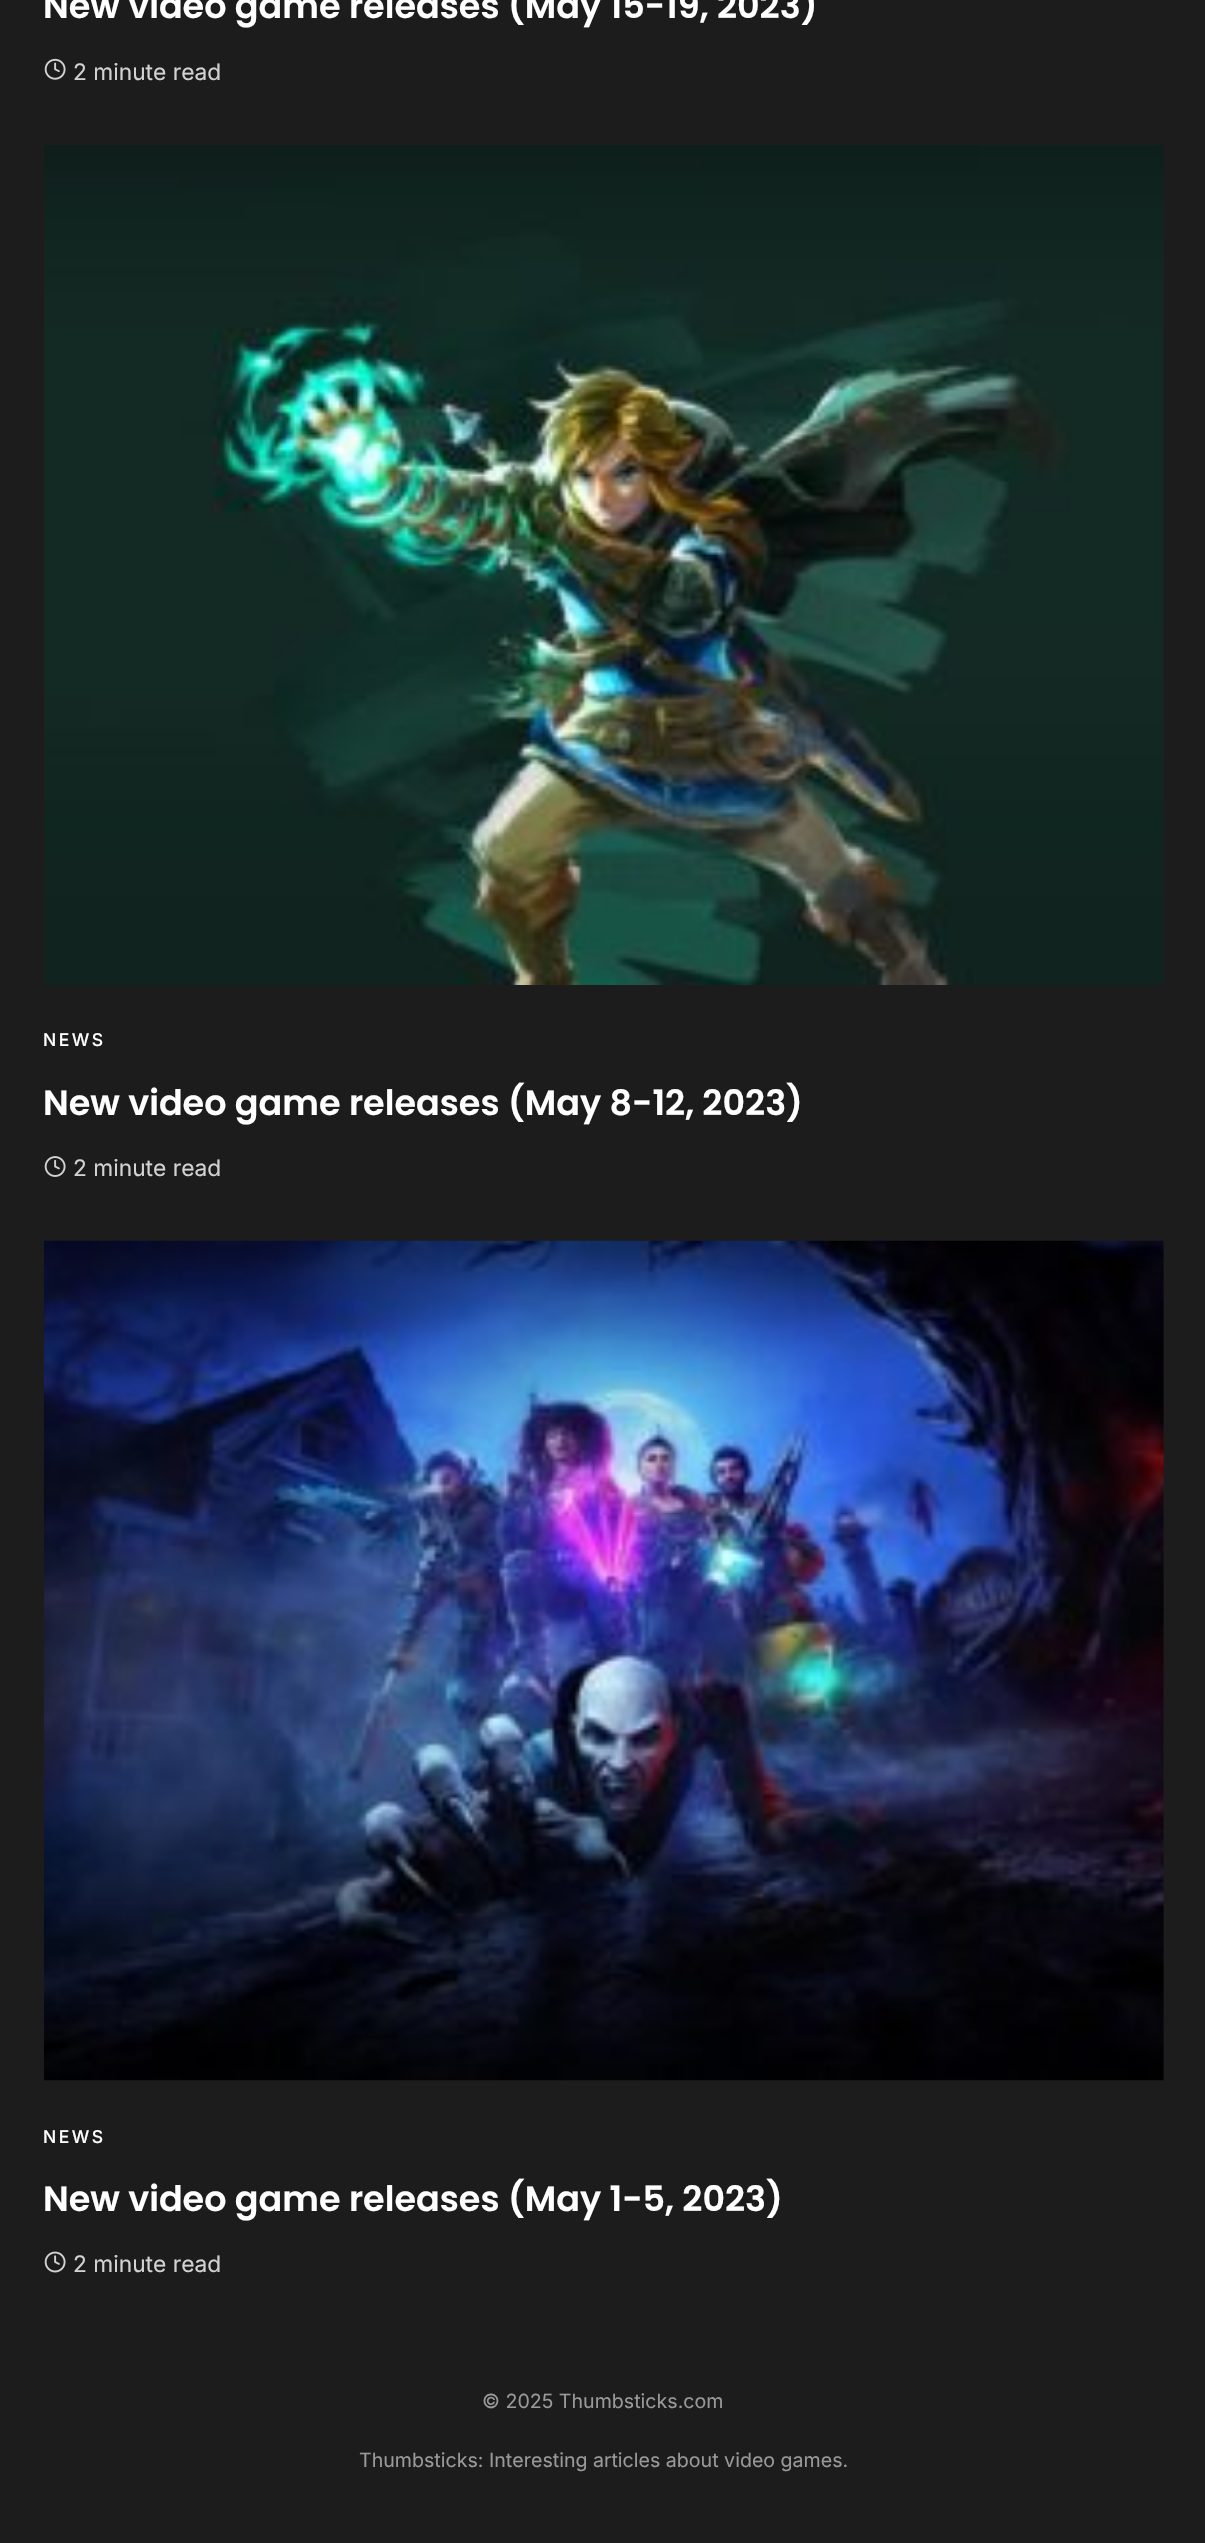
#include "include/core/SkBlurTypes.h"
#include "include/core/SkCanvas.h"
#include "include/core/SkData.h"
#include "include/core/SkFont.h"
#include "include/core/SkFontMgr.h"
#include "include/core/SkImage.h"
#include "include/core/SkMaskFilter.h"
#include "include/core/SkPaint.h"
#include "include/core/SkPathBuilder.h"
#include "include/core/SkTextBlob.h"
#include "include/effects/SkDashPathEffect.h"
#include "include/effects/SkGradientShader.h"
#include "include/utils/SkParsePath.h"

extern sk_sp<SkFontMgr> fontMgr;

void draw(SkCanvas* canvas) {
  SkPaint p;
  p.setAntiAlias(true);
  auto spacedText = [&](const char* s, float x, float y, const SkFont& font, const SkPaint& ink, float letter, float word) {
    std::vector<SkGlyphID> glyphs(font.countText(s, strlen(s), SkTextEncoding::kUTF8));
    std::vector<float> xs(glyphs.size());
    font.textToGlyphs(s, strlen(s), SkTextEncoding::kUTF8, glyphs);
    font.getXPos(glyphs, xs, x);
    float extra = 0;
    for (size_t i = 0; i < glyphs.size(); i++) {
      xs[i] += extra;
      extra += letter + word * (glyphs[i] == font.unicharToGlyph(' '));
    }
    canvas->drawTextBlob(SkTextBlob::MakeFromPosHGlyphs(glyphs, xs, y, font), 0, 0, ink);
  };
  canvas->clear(SkColorSetRGB(28, 28, 28));
  canvas->drawImageRect(SkImages::DeferredFromEncodedData(SkData::MakeFromFileName("images/1.png")), SkRect::MakeLTRB(44, 58, 66, 80), SkSamplingOptions());
  canvas->drawImageRect(SkImages::DeferredFromEncodedData(SkData::MakeFromFileName("images/2.png")), SkRect::MakeLTRB(44, 145, 1164, 985), SkSamplingOptions());
  canvas->drawImageRect(SkImages::DeferredFromEncodedData(SkData::MakeFromFileName("images/3.png")), SkRect::MakeLTRB(44, 1156, 66, 1177), SkSamplingOptions());
  canvas->drawImageRect(SkImages::DeferredFromEncodedData(SkData::MakeFromFileName("images/4.png")), SkRect::MakeLTRB(43, 1240, 1164, 2081), SkSamplingOptions());
  canvas->drawImageRect(SkImages::DeferredFromEncodedData(SkData::MakeFromFileName("images/5.png")), SkRect::MakeLTRB(44, 2251, 66, 2273), SkSamplingOptions());
  SkFont font1(fontMgr->matchFamilyStyle("Poppins", SkFontStyle(600, SkFontStyle::kNormal_Width, SkFontStyle::kUpright_Slant)), 35);
  font1.setSubpixel(true);
  p.setColor(SK_ColorWHITE);
  canvas->drawString("New video game releases (May 15-19, 2023)", 43, 18, font1, p);
  SkFont font2(fontMgr->matchFamilyStyle("Inter", SkFontStyle::Normal()), 22.75f);
  font2.setSubpixel(true);
  p.setColor(SkColorSetRGB(210, 210, 210));
  canvas->drawString("2 minute read", 73, 80, font2, p);
  SkFont font3(fontMgr->matchFamilyStyle("Inter", SkFontStyle(500, SkFontStyle::kNormal_Width, SkFontStyle::kUpright_Slant)), 17.5f);
  font3.setSubpixel(true);
  p.setColor(SK_ColorWHITE);
  spacedText("NEWS", 43, 1046, font3, p, 2.5f, 0);
  canvas->drawString("New video game releases (May 8-12, 2023)", 43, 1115, font1, p);
  p.setColor(SkColorSetRGB(210, 210, 210));
  canvas->drawString("2 minute read", 73, 1176, font2, p);
  p.setColor(SK_ColorWHITE);
  spacedText("NEWS", 43, 2143, font3, p, 2.5f, 0);
  canvas->drawString("New video game releases (May 1-5, 2023)", 43, 2211, font1, p);
  p.setColor(SkColorSetRGB(210, 210, 210));
  canvas->drawString("2 minute read", 73, 2272, font2, p);
  SkFont font4(fontMgr->matchFamilyStyle("Inter", SkFontStyle::Normal()), 19.6f);
  font4.setSubpixel(true);
  p.setColor(SkColorSetRGB(153, 153, 153));
  canvas->drawString("© 2025 Thumbsticks.com", 482, 2408, font4, p);
  canvas->drawString("Thumbsticks: Interesting articles about video games.", 359, 2467, font4, p);
}
